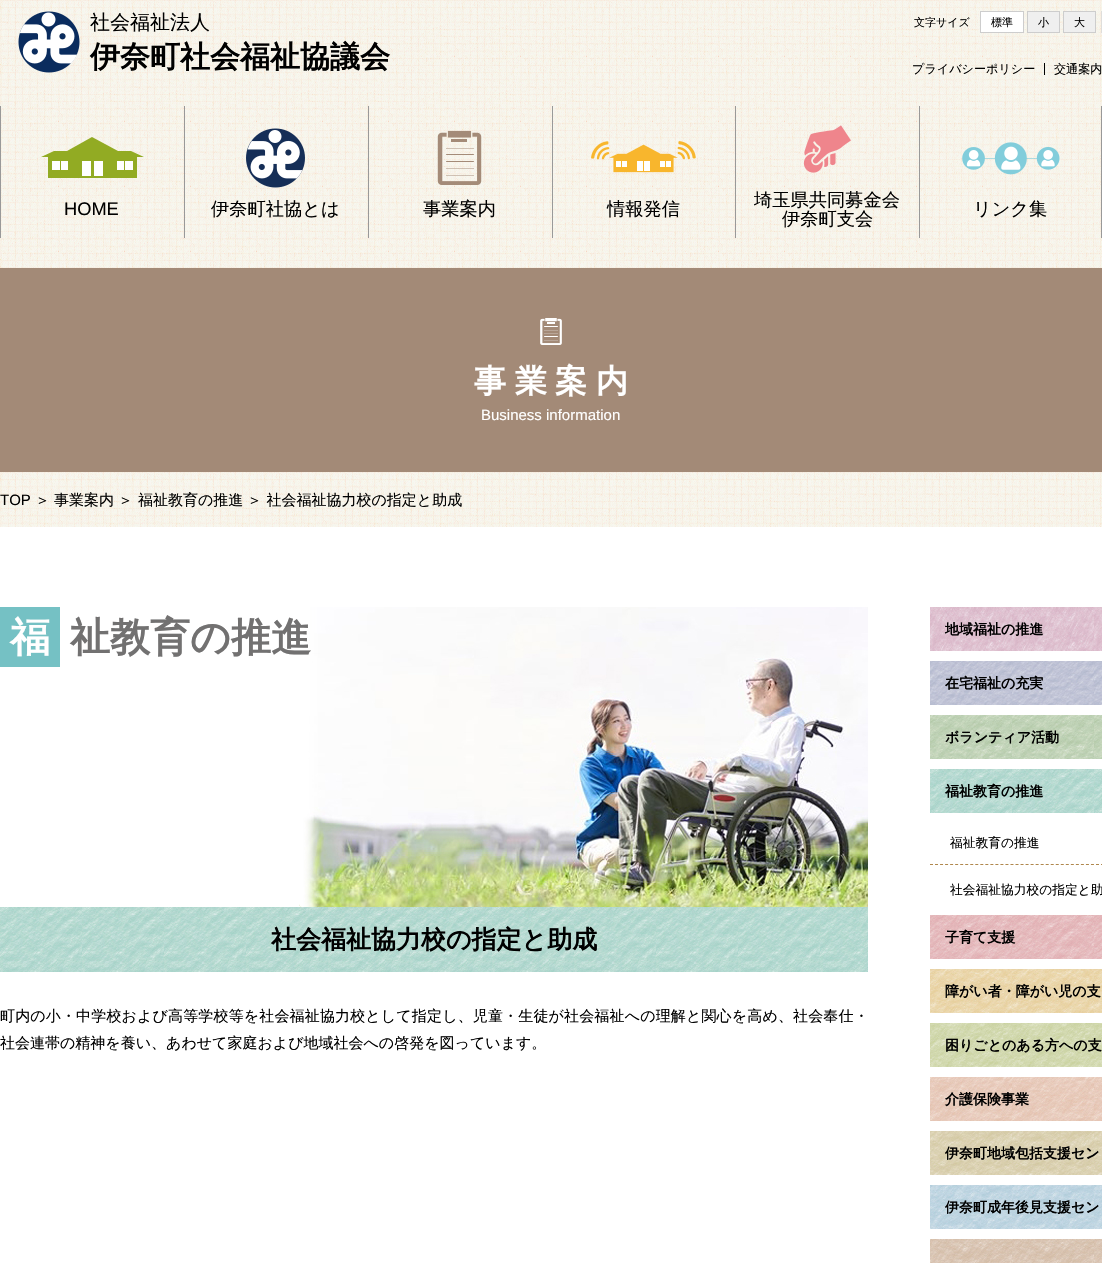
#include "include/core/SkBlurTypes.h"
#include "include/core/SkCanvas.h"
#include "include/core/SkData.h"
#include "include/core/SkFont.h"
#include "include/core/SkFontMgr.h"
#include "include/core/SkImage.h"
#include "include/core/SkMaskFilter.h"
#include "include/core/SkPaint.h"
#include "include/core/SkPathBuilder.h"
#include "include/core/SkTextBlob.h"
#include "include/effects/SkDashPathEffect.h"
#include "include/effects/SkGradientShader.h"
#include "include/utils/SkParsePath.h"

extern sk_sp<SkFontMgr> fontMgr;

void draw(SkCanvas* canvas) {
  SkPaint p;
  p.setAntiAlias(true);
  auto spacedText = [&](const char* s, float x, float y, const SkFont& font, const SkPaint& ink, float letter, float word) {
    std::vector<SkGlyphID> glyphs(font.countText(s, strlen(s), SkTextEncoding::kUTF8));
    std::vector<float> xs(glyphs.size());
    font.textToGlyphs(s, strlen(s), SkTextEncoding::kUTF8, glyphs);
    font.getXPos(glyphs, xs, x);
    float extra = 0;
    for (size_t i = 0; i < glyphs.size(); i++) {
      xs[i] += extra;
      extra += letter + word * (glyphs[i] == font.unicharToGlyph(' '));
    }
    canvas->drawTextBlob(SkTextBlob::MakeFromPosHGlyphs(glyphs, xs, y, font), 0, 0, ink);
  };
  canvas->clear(SK_ColorWHITE);
  canvas->drawImageRect(SkImages::DeferredFromEncodedData(SkData::MakeFromFileName("images/1.png")), SkRect::MakeLTRB(0, 0, 1102, 268), SkSamplingOptions());
  canvas->drawImageRect(SkImages::DeferredFromEncodedData(SkData::MakeFromFileName("images/2.png")), SkRect::MakeLTRB(18, 11, 80, 73), SkSamplingOptions());
  p.setColor(SkColorSetRGB(223, 222, 219));
  canvas->drawRect(SkRect::MakeLTRB(1101, 11, 1102, 33), p);
  p.setColor(SK_ColorWHITE);
  canvas->drawRect(SkRect::MakeLTRB(980.5f, 11.5f, 1023.5f, 32.5f), p);
  p.setStyle(SkPaint::kStroke_Style);
  p.setStrokeWidth(1);
  p.setColor(SkColorSetRGB(205, 205, 205));
  canvas->drawRect(SkRect::MakeLTRB(980.5f, 11.5f, 1023.5f, 32.5f), p);
  p.setStyle(SkPaint::kFill_Style);
  p.setColor(SkColorSetRGB(239, 239, 239));
  canvas->drawRect(SkRect::MakeLTRB(1027.5f, 11.5f, 1059.5f, 32.5f), p);
  p.setStyle(SkPaint::kStroke_Style);
  p.setColor(SkColorSetRGB(205, 205, 205));
  canvas->drawRect(SkRect::MakeLTRB(1027.5f, 11.5f, 1059.5f, 32.5f), p);
  p.setStyle(SkPaint::kFill_Style);
  p.setColor(SkColorSetRGB(239, 239, 239));
  canvas->drawRect(SkRect::MakeLTRB(1063.5f, 11.5f, 1095.5f, 32.5f), p);
  p.setStyle(SkPaint::kStroke_Style);
  p.setColor(SkColorSetRGB(205, 205, 205));
  canvas->drawRect(SkRect::MakeLTRB(1063.5f, 11.5f, 1095.5f, 32.5f), p);
  p.setStyle(SkPaint::kFill_Style);
  p.setColor(SK_ColorBLACK);
  canvas->drawRect(SkRect::MakeLTRB(1044, 63, 1045, 75), p);
  p.setColor(SkColorSetRGB(153, 153, 153));
  canvas->drawRect(SkRect::MakeLTRB(0, 106, 1, 238), p);
  p.setColor(SkColorSetRGB(146, 171, 35));
  canvas->drawPath(SkPathBuilder().moveTo(131, 151).lineTo(118, 151).lineTo(92, 137).lineTo(67, 151).lineTo(54, 151).lineTo(41, 157).lineTo(48, 157).lineTo(48, 178).lineTo(137, 178).lineTo(137, 157).lineTo(144, 157).close().detach(), p);
  p.setColor(SK_ColorWHITE);
  canvas->drawRect(SkRect::MakeLTRB(52, 161, 60, 170), p);
  canvas->drawRect(SkRect::MakeLTRB(61, 161, 68, 170), p);
  canvas->drawRect(SkRect::MakeLTRB(82, 161, 91, 176), p);
  canvas->drawRect(SkRect::MakeLTRB(94, 161, 103, 176), p);
  canvas->drawRect(SkRect::MakeLTRB(117, 161, 124, 170), p);
  canvas->drawRect(SkRect::MakeLTRB(125, 161, 133, 170), p);
  p.setColor(SkColorSetRGB(153, 153, 153));
  canvas->drawRect(SkRect::MakeLTRB(184, 106, 185, 238), p);
  canvas->drawImageRect(SkImages::DeferredFromEncodedData(SkData::MakeFromFileName("images/3.png")), SkRect::MakeLTRB(246, 128, 305, 188), SkSamplingOptions());
  canvas->drawRect(SkRect::MakeLTRB(368, 106, 369, 238), p);
  canvas->drawImageRect(SkImages::DeferredFromEncodedData(SkData::MakeFromFileName("images/4.png")), SkRect::MakeLTRB(437, 130, 482, 185), SkSamplingOptions());
  canvas->drawRect(SkRect::MakeLTRB(552, 106, 553, 238), p);
  canvas->drawImageRect(SkImages::DeferredFromEncodedData(SkData::MakeFromFileName("images/5.png")), SkRect::MakeLTRB(591, 141, 696, 173), SkSamplingOptions());
  canvas->drawRect(SkRect::MakeLTRB(735, 106, 736, 238), p);
  canvas->drawImageRect(SkImages::DeferredFromEncodedData(SkData::MakeFromFileName("images/6.png")), SkRect::MakeLTRB(803, 125, 851, 173), SkSamplingOptions());
  canvas->drawRect(SkRect::MakeLTRB(1101, 106, 1102, 238), p);
  canvas->drawRect(SkRect::MakeLTRB(919, 106, 920, 238), p);
  canvas->drawImageRect(SkImages::DeferredFromEncodedData(SkData::MakeFromFileName("images/7.png")), SkRect::MakeLTRB(962, 142, 1060, 175), SkSamplingOptions());
  p.setColor(SkColorSetRGB(163, 138, 119));
  canvas->drawRect(SkRect::MakeLTRB(0, 268, 1102, 472), p);
  canvas->drawImageRect(SkImages::DeferredFromEncodedData(SkData::MakeFromFileName("images/8.png")), SkRect::MakeLTRB(540, 318, 562, 345), SkSamplingOptions());
  canvas->drawImageRect(SkImages::DeferredFromEncodedData(SkData::MakeFromFileName("images/9.png")), SkRect::MakeLTRB(0, 472, 1102, 527), SkSamplingOptions());
  canvas->drawImageRect(SkImages::DeferredFromEncodedData(SkData::MakeFromFileName("images/10.png")), SkRect::MakeLTRB(299, 607, 868, 907), SkSamplingOptions());
  p.setColor(SkColorSetRGB(117, 193, 196));
  canvas->drawRect(SkRect::MakeLTRB(0, 607, 60, 667), p);
  canvas->drawImageRect(SkImages::DeferredFromEncodedData(SkData::MakeFromFileName("images/11.png")), SkRect::MakeLTRB(0, 907, 868, 972), SkSamplingOptions());
  canvas->drawImageRect(SkImages::DeferredFromEncodedData(SkData::MakeFromFileName("images/12.png")), SkRect::MakeLTRB(930, 607, 1102, 651), SkSamplingOptions());
  canvas->drawImageRect(SkImages::DeferredFromEncodedData(SkData::MakeFromFileName("images/13.png")), SkRect::MakeLTRB(930, 661, 1102, 705), SkSamplingOptions());
  canvas->drawImageRect(SkImages::DeferredFromEncodedData(SkData::MakeFromFileName("images/14.png")), SkRect::MakeLTRB(930, 715, 1102, 759), SkSamplingOptions());
  canvas->drawImageRect(SkImages::DeferredFromEncodedData(SkData::MakeFromFileName("images/15.png")), SkRect::MakeLTRB(930, 769, 1102, 813), SkSamplingOptions());
  p.setStyle(SkPaint::kStroke_Style);
  p.setColor(SkColorSetRGB(175, 135, 77));
  p.setPathEffect(SkDashPathEffect::Make({{3, 2.03f}}, 0));
  canvas->drawPath(SkPathBuilder().moveTo(930, 864.5f).lineTo(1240, 864.5f).detach(), p);
  p.setPathEffect(nullptr);
  canvas->drawImageRect(SkImages::DeferredFromEncodedData(SkData::MakeFromFileName("images/16.png")), SkRect::MakeLTRB(930, 915, 1102, 959), SkSamplingOptions());
  canvas->drawImageRect(SkImages::DeferredFromEncodedData(SkData::MakeFromFileName("images/17.png")), SkRect::MakeLTRB(930, 969, 1102, 1013), SkSamplingOptions());
  canvas->drawImageRect(SkImages::DeferredFromEncodedData(SkData::MakeFromFileName("images/18.png")), SkRect::MakeLTRB(930, 1023, 1102, 1067), SkSamplingOptions());
  canvas->drawImageRect(SkImages::DeferredFromEncodedData(SkData::MakeFromFileName("images/19.png")), SkRect::MakeLTRB(930, 1077, 1102, 1121), SkSamplingOptions());
  canvas->drawImageRect(SkImages::DeferredFromEncodedData(SkData::MakeFromFileName("images/20.png")), SkRect::MakeLTRB(930, 1131, 1102, 1175), SkSamplingOptions());
  canvas->drawImageRect(SkImages::DeferredFromEncodedData(SkData::MakeFromFileName("images/21.png")), SkRect::MakeLTRB(930, 1185, 1102, 1229), SkSamplingOptions());
  canvas->drawImageRect(SkImages::DeferredFromEncodedData(SkData::MakeFromFileName("images/22.png")), SkRect::MakeLTRB(930, 1239, 1102, 1263), SkSamplingOptions());
  SkFont font1(fontMgr->matchFamilyStyle("WenQuanYi Zen Hei", SkFontStyle(500, SkFontStyle::kNormal_Width, SkFontStyle::kUpright_Slant)), 20);
  font1.setSubpixel(true);
  p.setStyle(SkPaint::kFill_Style);
  p.setColor(SK_ColorBLACK);
  canvas->drawString("社会福祉法人", 90, 29, font1, p);
  SkFont font2(fontMgr->matchFamilyStyle("WenQuanYi Zen Hei", SkFontStyle::Bold()), 30);
  font2.setSubpixel(true);
  canvas->drawString("伊奈町社会福祉協議会", 90, 67, font2, p);
  SkFont font3(fontMgr->matchFamilyStyle("WenQuanYi Zen Hei", SkFontStyle(500, SkFontStyle::kNormal_Width, SkFontStyle::kUpright_Slant)), 11);
  font3.setSubpixel(true);
  canvas->drawString("文字サイズ", 914, 26, font3, p);
  canvas->drawString("標準", 991, 26, font3, p);
  canvas->drawString("小", 1038, 26, font3, p);
  canvas->drawString("大", 1074, 26, font3, p);
  SkFont font4(fontMgr->matchFamilyStyle("WenQuanYi Zen Hei", SkFontStyle(500, SkFontStyle::kNormal_Width, SkFontStyle::kUpright_Slant)), 12.1f);
  font4.setSubpixel(true);
  canvas->drawString("プライバシーポリシー", 912, 73, font4, p);
  canvas->drawString("交通案内", 1054, 73, font4, p);
  SkFont font5(fontMgr->matchFamilyStyle("Liberation Sans", SkFontStyle::Normal()), 18.25f);
  font5.setSubpixel(true);
  canvas->drawString("HOME", 64, 215, font5, p);
  SkFont font6(fontMgr->matchFamilyStyle("WenQuanYi Zen Hei", SkFontStyle(500, SkFontStyle::kNormal_Width, SkFontStyle::kUpright_Slant)), 18.25f);
  font6.setSubpixel(true);
  canvas->drawString("伊奈町社協とは", 211, 215, font6, p);
  canvas->drawString("事業案内", 423, 215, font6, p);
  canvas->drawString("情報発信", 607, 215, font6, p);
  canvas->drawString("埼玉県共同募金会", 754, 206, font6, p);
  canvas->drawString("伊奈町支会", 782, 225, font6, p);
  canvas->drawString("リンク集", 973, 215, font6, p);
  SkFont font7(fontMgr->matchFamilyStyle("WenQuanYi Zen Hei", SkFontStyle::Bold()), 32);
  font7.setSubpixel(true);
  p.setColor(SK_ColorWHITE);
  canvas->drawString("事", 474, 392, font7, p);
  canvas->drawString("業", 515, 392, font7, p);
  canvas->drawString("案", 555, 392, font7, p);
  canvas->drawString("内", 596, 392, font7, p);
  SkFont font8(fontMgr->matchFamilyStyle("Liberation Sans", SkFontStyle::Normal()), 15);
  font8.setSubpixel(true);
  canvas->drawString("Business information", 481, 420, font8, p);
  p.setColor(SK_ColorBLACK);
  canvas->drawString("TOP", 0, 505, font8, p);
  SkFont font9(fontMgr->matchFamilyStyle("WenQuanYi Zen Hei", SkFontStyle(500, SkFontStyle::kNormal_Width, SkFontStyle::kUpright_Slant)), 15);
  font9.setSubpixel(true);
  canvas->drawString("＞", 35, 505, font9, p);
  canvas->drawString("事業案内", 54, 505, font9, p);
  canvas->drawString("＞", 118, 505, font9, p);
  canvas->drawString("福祉教育の推進", 138, 505, font9, p);
  canvas->drawString("＞ 社会福祉協力校の指定と助成", 247, 505, font9, p);
  SkFont font10(fontMgr->matchFamilyStyle("WenQuanYi Zen Hei", SkFontStyle::Bold()), 40);
  font10.setSubpixel(true);
  p.setColor(SK_ColorWHITE);
  canvas->drawString("福", 10, 651, font10, p);
  p.setColor(SkColorSetRGB(114, 113, 113));
  canvas->drawString("祉教育の推進", 70, 651, font10, p);
  SkFont font11(fontMgr->matchFamilyStyle("WenQuanYi Zen Hei", SkFontStyle::Bold()), 25);
  font11.setSubpixel(true);
  p.setColor(SK_ColorBLACK);
  canvas->drawString("社会福祉協力校の指定と助成", 271, 948, font11, p);
  spacedText("町内の小・中学校および高等学校等を社会福祉協力校として指定し、児童・生徒が社会福祉への理解と関心を高め、社会奉仕・", 0, 1021, font9, p, 0.15f, 0);
  canvas->drawString("社会連帯の精神を養い、あわせて家庭および地域社会への啓発を図っています。", 0, 1048, font9, p);
  SkFont font12(fontMgr->matchFamilyStyle("WenQuanYi Zen Hei", SkFontStyle::Bold()), 14);
  font12.setSubpixel(true);
  canvas->drawString("地域福祉の推進", 945, 634, font12, p);
  canvas->drawString("在宅福祉の充実", 945, 688, font12, p);
  canvas->drawString("ボランティア活動", 945, 742, font12, p);
  canvas->drawString("福祉教育の推進", 945, 796, font12, p);
  SkFont font13(fontMgr->matchFamilyStyle("WenQuanYi Zen Hei", SkFontStyle(500, SkFontStyle::kNormal_Width, SkFontStyle::kUpright_Slant)), 12.75f);
  font13.setSubpixel(true);
  canvas->drawString("福祉教育の推進", 950, 847, font13, p);
  canvas->drawString("社会福祉協力校の指定と助", 950, 894, font13, p);
  canvas->drawString("子育て支援", 945, 942, font12, p);
  canvas->drawString("障がい者・障がい児の支", 945, 996, font12, p);
  canvas->drawString("困りごとのある方への支", 945, 1050, font12, p);
  canvas->drawString("介護保険事業", 945, 1104, font12, p);
  canvas->drawString("伊奈町地域包括支援セン", 945, 1158, font12, p);
  canvas->drawString("伊奈町成年後見支援セン", 945, 1212, font12, p);
}
